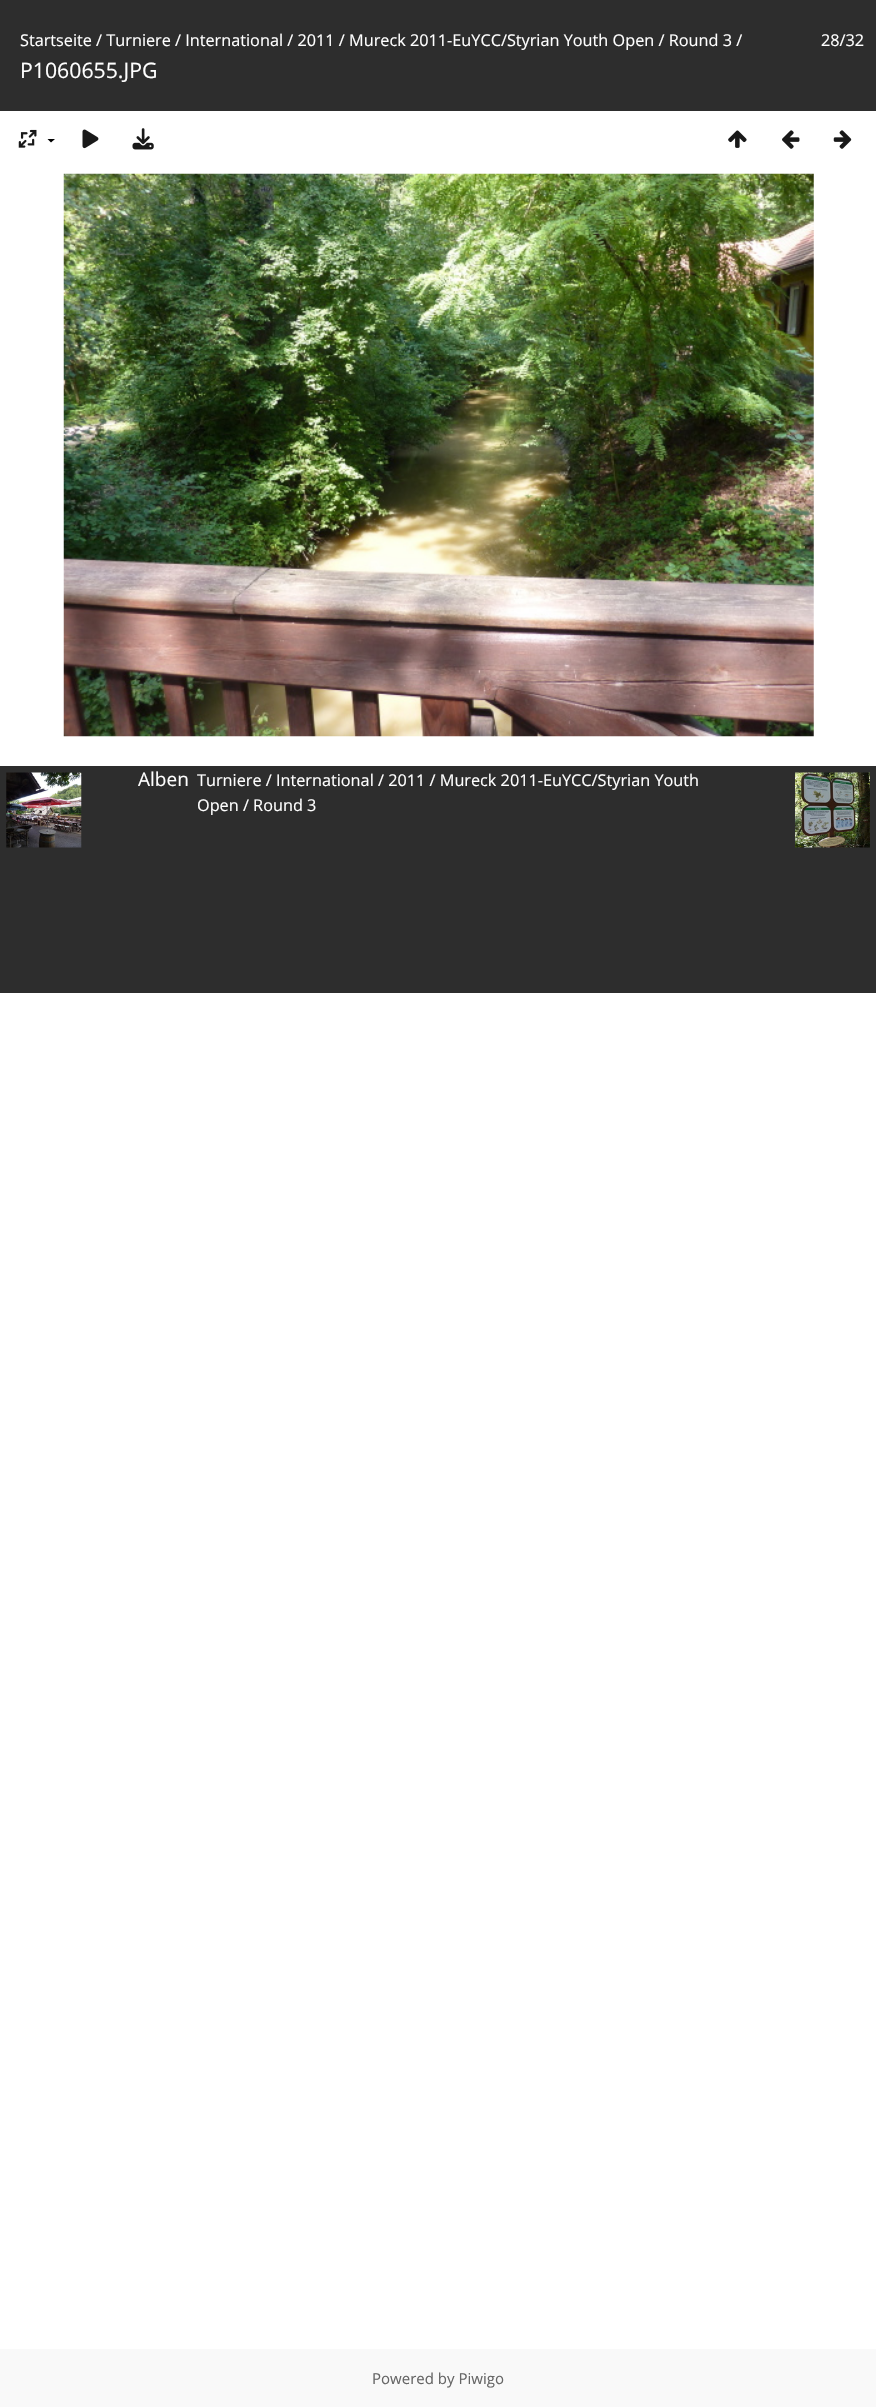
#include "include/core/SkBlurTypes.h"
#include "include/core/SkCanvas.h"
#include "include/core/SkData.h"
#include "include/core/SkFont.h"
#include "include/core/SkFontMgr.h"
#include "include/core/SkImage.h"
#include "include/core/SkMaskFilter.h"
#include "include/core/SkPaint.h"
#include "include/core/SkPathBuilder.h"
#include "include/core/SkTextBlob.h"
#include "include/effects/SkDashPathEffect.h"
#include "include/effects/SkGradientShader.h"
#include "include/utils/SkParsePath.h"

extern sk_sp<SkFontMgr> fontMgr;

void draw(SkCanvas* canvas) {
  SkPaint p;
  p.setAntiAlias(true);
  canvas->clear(SK_ColorWHITE);
  p.setColor(SkColorSetRGB(45, 45, 45));
  canvas->drawRect(SkRect::MakeLTRB(0, 0, 876, 111), p);
  canvas->drawImageRect(SkImages::DeferredFromEncodedData(SkData::MakeFromFileName("images/1.png")), SkRect::MakeLTRB(18, 129, 37, 148), SkSamplingOptions());
  p.setColor(SK_ColorBLACK);
  canvas->drawPath(SkPathBuilder().moveTo(47.5f, 139).lineTo(55, 139).lineTo(51, 142.5f).close().detach(), p);
  canvas->drawImageRect(SkImages::DeferredFromEncodedData(SkData::MakeFromFileName("images/2.png")), SkRect::MakeLTRB(82, 129, 99, 149), SkSamplingOptions());
  canvas->drawImageRect(SkImages::DeferredFromEncodedData(SkData::MakeFromFileName("images/3.png")), SkRect::MakeLTRB(132, 128, 154, 150), SkSamplingOptions());
  canvas->drawImageRect(SkImages::DeferredFromEncodedData(SkData::MakeFromFileName("images/4.png")), SkRect::MakeLTRB(728, 130, 747, 148), SkSamplingOptions());
  canvas->drawImageRect(SkImages::DeferredFromEncodedData(SkData::MakeFromFileName("images/5.png")), SkRect::MakeLTRB(782, 130, 800, 149), SkSamplingOptions());
  canvas->drawImageRect(SkImages::DeferredFromEncodedData(SkData::MakeFromFileName("images/6.png")), SkRect::MakeLTRB(833, 130, 852, 149), SkSamplingOptions());
  canvas->drawImageRect(SkImages::DeferredFromEncodedData(SkData::MakeFromFileName("images/7.png")), SkRect::MakeLTRB(63, 173, 814, 737), SkSamplingOptions());
  p.setColor(SkColorSetRGB(45, 45, 45));
  canvas->drawRect(SkRect::MakeLTRB(0, 766, 876, 993), p);
  canvas->drawImageRect(SkImages::DeferredFromEncodedData(SkData::MakeFromFileName("images/8.png")), SkRect::MakeLTRB(6, 772, 82, 848), SkSamplingOptions());
  canvas->drawImageRect(SkImages::DeferredFromEncodedData(SkData::MakeFromFileName("images/9.png")), SkRect::MakeLTRB(795, 772, 870, 848), SkSamplingOptions());
  p.setColor(SkColorSetRGB(249, 249, 249));
  canvas->drawRect(SkRect::MakeLTRB(0, 2349, 876, 2407), p);
  SkFont font1(fontMgr->matchFamilyStyle("Open Sans", SkFontStyle::Normal()), 16.25f);
  font1.setSubpixel(true);
  p.setColor(SK_ColorWHITE);
  canvas->drawString("Startseite / Turniere / International / 2011 / Mureck 2011-EuYCC/Styrian Youth Open / Round 3 /", 20, 46, font1, p);
  SkFont font2(fontMgr->matchFamilyStyle("Open Sans", SkFontStyle::Normal()), 21.25f);
  font2.setSubpixel(true);
  canvas->drawString("P1060655.JPG", 20, 78, font2, p);
  canvas->drawString("28/32", 821, 46, font1, p);
  SkFont font3(fontMgr->matchFamilyStyle("Open Sans", SkFontStyle::Normal()), 19);
  font3.setSubpixel(true);
  canvas->drawString("Alben", 138, 786, font3, p);
  canvas->drawString("Turniere / International / 2011 / Mureck 2011-EuYCC/Styrian Youth", 197, 786, font1, p);
  canvas->drawString("Open / Round 3", 197, 811, font1, p);
  SkFont font4(fontMgr->matchFamilyStyle("Open Sans", SkFontStyle::Normal()), 15);
  font4.setSubpixel(true);
  p.setColor(SkColorSetRGB(102, 102, 102));
  canvas->drawString("Powered by Piwigo", 372, 2384, font4, p);
}
